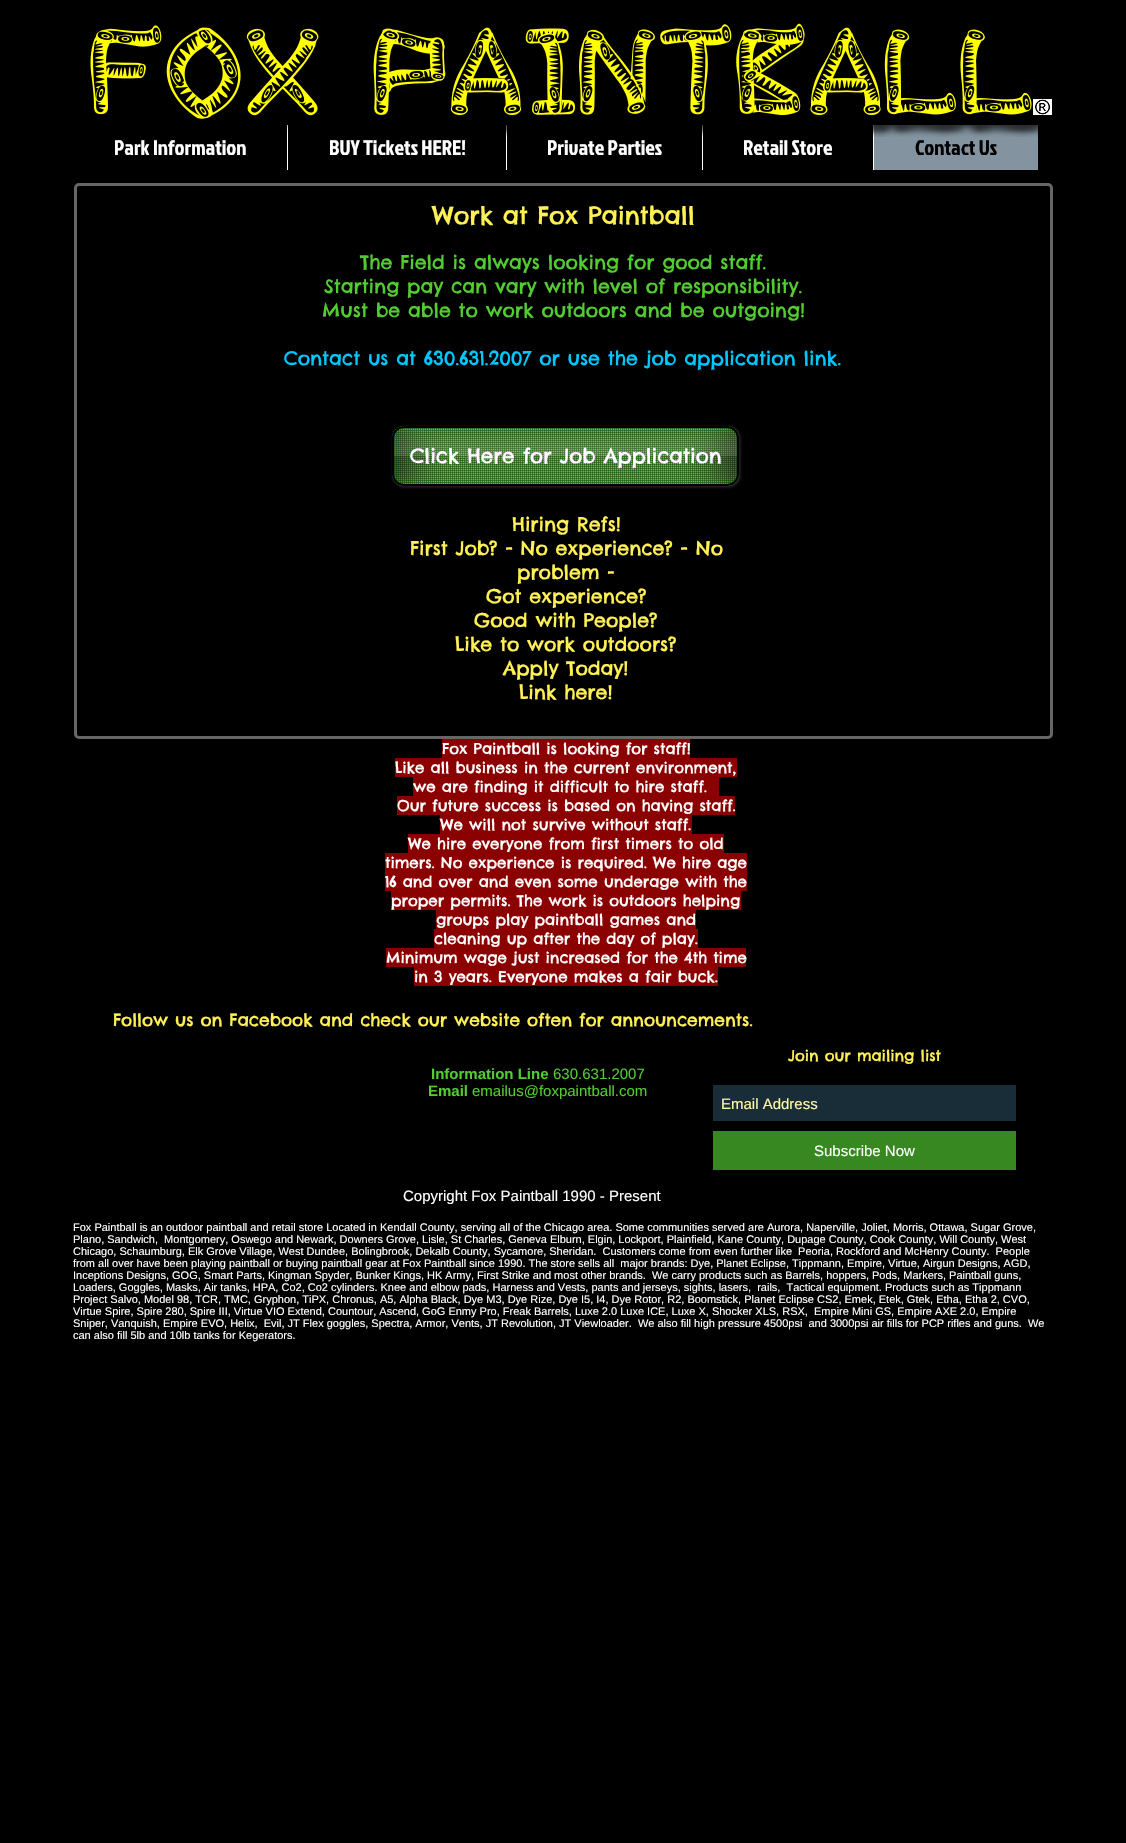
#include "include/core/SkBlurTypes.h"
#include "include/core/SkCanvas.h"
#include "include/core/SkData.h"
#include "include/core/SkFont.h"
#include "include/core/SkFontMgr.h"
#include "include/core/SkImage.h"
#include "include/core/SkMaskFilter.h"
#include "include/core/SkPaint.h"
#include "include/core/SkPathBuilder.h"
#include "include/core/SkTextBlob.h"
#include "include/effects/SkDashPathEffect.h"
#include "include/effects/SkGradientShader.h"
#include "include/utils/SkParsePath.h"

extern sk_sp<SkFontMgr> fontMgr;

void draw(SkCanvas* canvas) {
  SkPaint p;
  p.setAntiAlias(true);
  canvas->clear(SK_ColorBLACK);
  p.setColor(SK_ColorWHITE);
  canvas->drawRect(SkRect::MakeLTRB(287, 125, 288, 170), p);
  canvas->drawRect(SkRect::MakeLTRB(506, 125, 507, 170), p);
  canvas->drawRect(SkRect::MakeLTRB(702, 125, 703, 170), p);
  p.setColor(SkColorSetRGB(131, 148, 160));
  canvas->drawRect(SkRect::MakeLTRB(874, 125, 1038, 170), p);
  p.setColor(SK_ColorWHITE);
  canvas->drawRect(SkRect::MakeLTRB(873, 125, 874, 170), p);
  canvas->drawImageRect(SkImages::DeferredFromEncodedData(SkData::MakeFromFileName("images/1.png")), SkRect::MakeLTRB(90, 23, 1038, 137), SkSamplingOptions());
  canvas->drawImageRect(SkImages::DeferredFromEncodedData(SkData::MakeFromFileName("images/2.png")), SkRect::MakeLTRB(1033, 99, 1052, 115), SkSamplingOptions());
  p.setStyle(SkPaint::kStroke_Style);
  p.setStrokeWidth(3);
  p.setColor(SkColorSetRGB(102, 102, 102));
  canvas->drawRoundRect(SkRect::MakeLTRB(75.5f, 184.5f, 1051.5f, 737.5f), 3.5f, 3.5f, p);
  p.setStyle(SkPaint::kFill_Style);
  p.setColor(SkColorSetARGB(77, 255, 255, 255));
  p.setMaskFilter(SkMaskFilter::MakeBlur(kNormal_SkBlurStyle, 1.5f));
  canvas->drawRoundRect(SkRect::MakeLTRB(393, 427, 740, 487), 12, 12, p);
  p.setMaskFilter(nullptr);
  p.setColor(SkColorSetARGB(153, 0, 0, 0));
  p.setMaskFilter(SkMaskFilter::MakeBlur(kNormal_SkBlurStyle, 3));
  canvas->drawRoundRect(SkRect::MakeLTRB(392, 426, 741, 488), 13, 13, p);
  p.setMaskFilter(nullptr);
  p.setColor(SkColorSetRGB(82, 204, 48));
  canvas->drawRoundRect(SkRect::MakeLTRB(392, 426, 739, 486), 12, 12, p);
  canvas->drawImageRect(SkImages::DeferredFromEncodedData(SkData::MakeFromFileName("images/3.png")), SkRect::MakeLTRB(392, 426, 739, 486), SkSamplingOptions());
  p.setStyle(SkPaint::kStroke_Style);
  p.setStrokeWidth(2);
  p.setColor(SK_ColorBLACK);
  canvas->drawRoundRect(SkRect::MakeLTRB(393, 427, 738, 485), 11, 11, p);
  canvas->drawImageRect(SkImages::DeferredFromEncodedData(SkData::MakeFromFileName("images/4.png")), SkRect::MakeLTRB(394, 428, 442, 484), SkSamplingOptions());
  canvas->drawImageRect(SkImages::DeferredFromEncodedData(SkData::MakeFromFileName("images/5.png")), SkRect::MakeLTRB(689, 428, 737, 484), SkSamplingOptions());
  p.setStyle(SkPaint::kFill_Style);
  p.setColor(SkColorSetRGB(139, 0, 0));
  canvas->drawRect(SkRect::MakeLTRB(442, 739, 690, 758), p);
  canvas->drawRect(SkRect::MakeLTRB(395, 758, 737, 777), p);
  canvas->drawRect(SkRect::MakeLTRB(413, 777, 719, 796), p);
  canvas->drawRect(SkRect::MakeLTRB(397, 796, 735, 815), p);
  canvas->drawRect(SkRect::MakeLTRB(440, 815, 692, 834), p);
  canvas->drawRect(SkRect::MakeLTRB(408, 834, 724, 853), p);
  canvas->drawRect(SkRect::MakeLTRB(385, 853, 747, 891), p);
  canvas->drawRect(SkRect::MakeLTRB(391, 891, 741, 910), p);
  canvas->drawRect(SkRect::MakeLTRB(436, 910, 696, 929), p);
  canvas->drawRect(SkRect::MakeLTRB(434, 929, 698, 948), p);
  canvas->drawRect(SkRect::MakeLTRB(386, 948, 746, 967), p);
  canvas->drawRect(SkRect::MakeLTRB(414, 967, 718, 986), p);
  p.setColor(SkColorSetRGB(25, 45, 57));
  canvas->drawRect(SkRect::MakeLTRB(713, 1085, 1016, 1121), p);
  p.setColor(SkColorSetRGB(55, 136, 32));
  canvas->drawRect(SkRect::MakeLTRB(713, 1131, 1016, 1170), p);
  SkFont font1(fontMgr->matchFamilyStyle("Jockey One", SkFontStyle::Normal()), 21);
  font1.setSubpixel(true);
  p.setColor(SK_ColorWHITE);
  canvas->drawString("Park Information", 114, 155, font1, p);
  canvas->drawString("BUY Tickets HERE!", 329, 155, font1, p);
  canvas->drawString("Private Parties", 547, 155, font1, p);
  canvas->drawString("Retail Store", 743, 155, font1, p);
  p.setColor(SK_ColorBLACK);
  canvas->drawString("Contact Us", 915, 155, font1, p);
  SkFont font2(fontMgr->matchFamilyStyle("Chelsea Market", SkFontStyle::Normal()), 24);
  font2.setSubpixel(true);
  p.setColor(SkColorSetRGB(255, 240, 86));
  canvas->drawString("Work at Fox Paintball", 432, 224, font2, p);
  SkFont font3(fontMgr->matchFamilyStyle("Chelsea Market", SkFontStyle::Normal()), 19);
  font3.setSubpixel(true);
  p.setColor(SkColorSetRGB(82, 204, 48));
  canvas->drawString("The Field is always looking for good staff.", 360, 269, font3, p);
  canvas->drawString("Starting pay can vary with level of responsibility.", 324, 293, font3, p);
  canvas->drawString("Must be able to work outdoors and be outgoing!", 322, 317, font3, p);
  p.setColor(SkColorSetRGB(0, 199, 255));
  canvas->drawString("Contact us at 630.631.2007 or use the job application link.", 284, 365, font3, p);
  SkFont font4(fontMgr->matchFamilyStyle("Chelsea Market", SkFontStyle::Normal()), 20);
  font4.setSubpixel(true);
  p.setColor(SK_ColorWHITE);
  canvas->drawString("Click Here for Job Application", 410, 463, font4, p);
  canvas->drawImageRect(SkImages::DeferredFromEncodedData(SkData::MakeFromFileName("images/6.png")), SkRect::MakeLTRB(394, 436, 737, 456), SkSamplingOptions());
  p.setColor(SkColorSetRGB(255, 240, 86));
  canvas->drawString("Hiring Refs!", 512, 531, font3, p);
  canvas->drawString("First Job? - No experience? - No", 410, 555, font3, p);
  canvas->drawString("problem -", 517, 579, font3, p);
  canvas->drawString("Got experience?", 486, 603, font3, p);
  canvas->drawString("Good with People?", 474, 627, font3, p);
  canvas->drawString("Like to work outdoors?", 455, 651, font3, p);
  canvas->drawString("Apply Today!", 503, 675, font3, p);
  canvas->drawString("Link here!", 519, 699, font3, p);
  SkFont font5(fontMgr->matchFamilyStyle("Chelsea Market", SkFontStyle::Normal()), 15);
  font5.setSubpixel(true);
  p.setColor(SK_ColorWHITE);
  canvas->drawString("Fox Paintball is looking for staff!", 442, 754, font5, p);
  canvas->drawString("Like all business in the current environment,", 395, 773, font5, p);
  canvas->drawString("we are finding it difficult to hire staff.", 413, 792, font5, p);
  canvas->drawString("Our future success is based on having staff.", 397, 811, font5, p);
  canvas->drawString("We will not survive without staff.", 440, 830, font5, p);
  canvas->drawString("We hire everyone from first timers to old", 408, 849, font5, p);
  canvas->drawString("timers. No experience is required. We hire age", 385, 868, font5, p);
  canvas->drawString("16 and over and even some underage with the", 385, 887, font5, p);
  canvas->drawString("proper permits. The work is outdoors helping", 391, 906, font5, p);
  canvas->drawString("groups play paintball games and", 436, 925, font5, p);
  canvas->drawString("cleaning up after the day of play.", 434, 944, font5, p);
  canvas->drawString("Minimum wage just increased for the 4th time", 386, 963, font5, p);
  canvas->drawString("in 3 years. Everyone makes a fair buck.", 414, 982, font5, p);
  SkFont font6(fontMgr->matchFamilyStyle("Chelsea Market", SkFontStyle::Normal()), 17);
  font6.setSubpixel(true);
  p.setColor(SkColorSetRGB(255, 240, 86));
  canvas->drawString("Follow us on Facebook and check our website often for announcements.", 113, 1026, font6, p);
  SkFont font7(fontMgr->matchFamilyStyle("Liberation Sans", SkFontStyle::Bold()), 15);
  font7.setSubpixel(true);
  p.setColor(SkColorSetRGB(82, 204, 48));
  canvas->drawString("Information Line", 431, 1079, font7, p);
  SkFont font8(fontMgr->matchFamilyStyle("Liberation Sans", SkFontStyle::Normal()), 15);
  font8.setSubpixel(true);
  canvas->drawString("630.631.2007", 553, 1079, font8, p);
  canvas->drawString("Email", 428, 1096, font7, p);
  canvas->drawString("emailus@foxpaintball.com", 472, 1096, font8, p);
  p.setColor(SkColorSetRGB(255, 240, 86));
  canvas->drawString("Join our mailing list", 788, 1061, font5, p);
  p.setColor(SkColorSetRGB(255, 247, 170));
  canvas->drawString("Email Address", 721, 1109, font8, p);
  p.setColor(SK_ColorWHITE);
  canvas->drawString("Subscribe Now", 814, 1156, font8, p);
  canvas->drawString("Copyright Fox Paintball 1990 - Present", 403, 1201, font8, p);
  SkFont font9(fontMgr->matchFamilyStyle("Liberation Sans", SkFontStyle::Normal()), 11);
  font9.setSubpixel(true);
  canvas->drawString("Fox Paintball is an outdoor paintball and retail store Located in Kendall County, serving all of the Chicago area. Some communities served are Aurora, Naperville, Joliet, Morris, Ottawa, Sugar Grove,", 73, 1231, font9, p);
  canvas->drawString("Plano, Sandwich,  Montgomery, Oswego and Newark, Downers Grove, Lisle, St Charles, Geneva Elburn, Elgin, Lockport, Plainfield, Kane County, Dupage County, Cook County, Will County, West", 73, 1243, font9, p);
  canvas->drawString("Chicago, Schaumburg, Elk Grove Village, West Dundee, Bolingbrook, Dekalb County, Sycamore, Sheridan.  Customers come from even further like  Peoria, Rockford and McHenry County.  People", 73, 1255, font9, p);
  canvas->drawString("from all over have been playing paintball or buying paintball gear at Fox Paintball since 1990. The store sells all  major brands: Dye, Planet Eclipse, Tippmann, Empire, Virtue, Airgun Designs, AGD,", 73, 1267, font9, p);
  canvas->drawString("Inceptions Designs, GOG, Smart Parts, Kingman Spyder, Bunker Kings, HK Army, First Strike and most other brands.  We carry products such as Barrels, hoppers, Pods, Markers, Paintball guns,", 73, 1279, font9, p);
  canvas->drawString("Loaders, Goggles, Masks, Air tanks, HPA, Co2, Co2 cylinders. Knee and elbow pads, Harness and Vests, pants and jerseys, sights, lasers,  rails,  Tactical equipment. Products such as Tippmann", 73, 1291, font9, p);
  canvas->drawString("Project Salvo, Model 98, TCR, TMC, Gryphon, TiPX, Chronus, A5, Alpha Black, Dye M3, Dye Rize, Dye I5, I4, Dye Rotor, R2, Boomstick, Planet Eclipse CS2, Emek, Etek, Gtek, Etha, Etha 2, CVO,", 73, 1303, font9, p);
  canvas->drawString("Virtue Spire, Spire 280, Spire III, Virtue VIO Extend, Countour, Ascend, GoG Enmy Pro, Freak Barrels, Luxe 2.0 Luxe ICE, Luxe X, Shocker XLS, RSX,  Empire Mini GS, Empire AXE 2.0, Empire", 73, 1315, font9, p);
  canvas->drawString("Sniper, Vanquish, Empire EVO, Helix,  Evil, JT Flex goggles, Spectra, Armor, Vents, JT Revolution, JT Viewloader.  We also fill high pressure 4500psi  and 3000psi air fills for PCP rifles and guns.  We", 73, 1327, font9, p);
  canvas->drawString("can also fill 5lb and 10lb tanks for Kegerators.", 73, 1339, font9, p);
}
